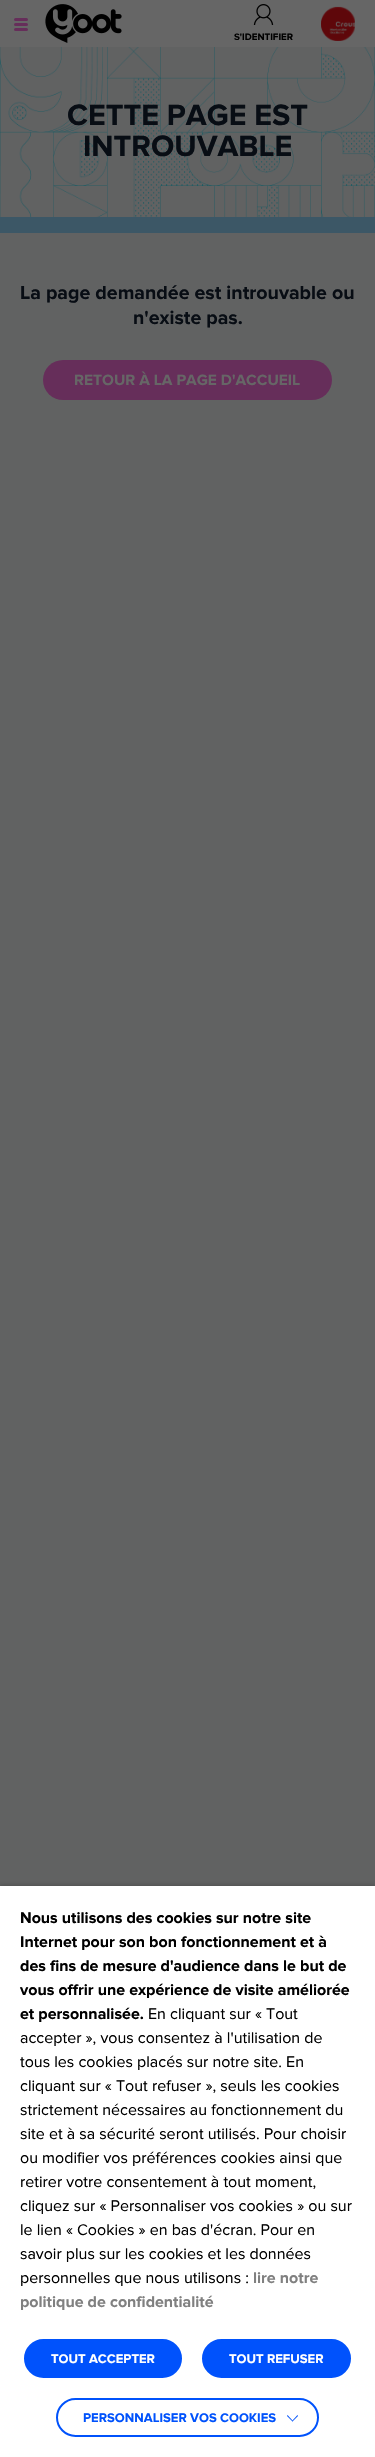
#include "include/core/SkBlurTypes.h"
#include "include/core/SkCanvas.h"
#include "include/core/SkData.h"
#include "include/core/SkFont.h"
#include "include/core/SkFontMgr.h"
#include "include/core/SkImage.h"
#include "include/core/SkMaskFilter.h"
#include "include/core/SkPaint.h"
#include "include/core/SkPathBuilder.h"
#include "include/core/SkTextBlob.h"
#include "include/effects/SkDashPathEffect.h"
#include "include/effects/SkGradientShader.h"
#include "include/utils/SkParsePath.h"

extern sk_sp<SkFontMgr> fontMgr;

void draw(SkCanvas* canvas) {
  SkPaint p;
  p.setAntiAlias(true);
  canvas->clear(SkColorSetRGB(97, 98, 98));
  p.setColor(SkColorSetRGB(102, 102, 102));
  canvas->drawRect(SkRect::MakeLTRB(0, 0, 375, 47), p);
  p.setColor(SkColorSetRGB(102, 46, 90));
  canvas->drawRoundRect(SkRect::MakeLTRB(14, 18, 28, 21), 1.5f, 1.5f, p);
  canvas->drawRoundRect(SkRect::MakeLTRB(14, 23, 28, 26), 1.5f, 1.5f, p);
  canvas->drawRoundRect(SkRect::MakeLTRB(14, 28, 28, 31), 1.5f, 1.5f, p);
  canvas->drawImageRect(SkImages::DeferredFromEncodedData(SkData::MakeFromFileName("images/1.png")), SkRect::MakeLTRB(45, 4, 122, 43), SkSamplingOptions());
  canvas->drawImageRect(SkImages::DeferredFromEncodedData(SkData::MakeFromFileName("images/2.png")), SkRect::MakeLTRB(253, 4, 274, 25), SkSamplingOptions());
  canvas->drawImageRect(SkImages::DeferredFromEncodedData(SkData::MakeFromFileName("images/3.png")), SkRect::MakeLTRB(321, 6, 355, 41), SkSamplingOptions());
  canvas->drawImageRect(SkImages::DeferredFromEncodedData(SkData::MakeFromFileName("images/4.png")), SkRect::MakeLTRB(0, 47, 375, 217), SkSamplingOptions());
  p.setColor(SkColorSetRGB(60, 87, 102));
  canvas->drawRect(SkRect::MakeLTRB(0, 217, 375, 233), p);
  p.setColor(SkColorSetRGB(102, 46, 90));
  canvas->drawRoundRect(SkRect::MakeLTRB(43, 360, 332, 400), 20, 20, p);
  p.setColor(SkColorSetARGB(51, 0, 0, 0));
  p.setMaskFilter(SkMaskFilter::MakeBlur(kNormal_SkBlurStyle, 2.5f));
  canvas->drawRect(SkRect::MakeLTRB(-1, 1885, 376, 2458), p);
  p.setMaskFilter(nullptr);
  p.setColor(SK_ColorWHITE);
  canvas->drawRect(SkRect::MakeLTRB(0, 1886, 375, 2457), p);
  p.setColor(SkColorSetRGB(0, 82, 252));
  canvas->drawRoundRect(SkRect::MakeLTRB(25, 2340, 181, 2377), 18.5f, 18.5f, p);
  p.setStyle(SkPaint::kStroke_Style);
  p.setStrokeWidth(2);
  canvas->drawRoundRect(SkRect::MakeLTRB(25, 2340, 181, 2377), 18.5f, 18.5f, p);
  p.setStyle(SkPaint::kFill_Style);
  canvas->drawRoundRect(SkRect::MakeLTRB(203, 2340, 350, 2377), 18.5f, 18.5f, p);
  p.setStyle(SkPaint::kStroke_Style);
  canvas->drawRoundRect(SkRect::MakeLTRB(203, 2340, 350, 2377), 18.5f, 18.5f, p);
  canvas->drawRoundRect(SkRect::MakeLTRB(57, 2399, 318, 2436), 18.5f, 18.5f, p);
  p.setStyle(SkPaint::kFill_Style);
  canvas->drawPath(SkPathBuilder().moveTo(298, 2416).lineTo(292.5f, 2421.5f).lineTo(292, 2421).lineTo(297.5f, 2415).close().detach(), p);
  canvas->drawPath(SkPathBuilder().moveTo(293, 2421).lineTo(292.5f, 2421.5f).lineTo(287, 2416).lineTo(287.5f, 2415).close().detach(), p);
  SkFont font1(fontMgr->matchFamilyStyle("Proxima Nova", SkFontStyle::Bold()), 9.75f);
  font1.setSubpixel(true);
  p.setColor(SK_ColorBLACK);
  canvas->drawString("S'IDENTIFIER", 234, 40, font1, p);
  SkFont font2(fontMgr->matchFamilyStyle("Proxima Nova", SkFontStyle::Bold()), 30.5f);
  font2.setSubpixel(true);
  p.setColor(SkColorSetRGB(8, 13, 20));
  canvas->drawString("CETTE PAGE EST", 67, 125, font2, p);
  canvas->drawString("INTROUVABLE", 83, 156, font2, p);
  SkFont font3(fontMgr->matchFamilyStyle("Proxima Nova", SkFontStyle::Bold()), 19.6f);
  font3.setSubpixel(true);
  canvas->drawString("La page demandée est introuvable ou", 20, 299, font3, p);
  canvas->drawString("n'existe pas.", 133, 324, font3, p);
  SkFont font4(fontMgr->matchFamilyStyle("Proxima Nova", SkFontStyle::Bold()), 15.5f);
  font4.setSubpixel(true);
  p.setColor(SkColorSetRGB(102, 102, 102));
  canvas->drawString("RETOUR À LA PAGE D'ACCUEIL", 74, 385, font4, p);
  SkFont font5(fontMgr->matchFamilyStyle("Proxima Nova", SkFontStyle::Bold()), 16);
  font5.setSubpixel(true);
  p.setColor(SK_ColorBLACK);
  canvas->drawString("Nous utilisons des cookies sur notre site", 20, 1923, font5, p);
  canvas->drawString("Internet pour son bon fonctionnement et à", 20, 1947, font5, p);
  canvas->drawString("des fins de mesure d'audience dans le but de", 20, 1971, font5, p);
  canvas->drawString("vous offrir une expérience de visite améliorée", 20, 1995, font5, p);
  canvas->drawString("et personnalisée.", 20, 2019, font5, p);
  SkFont font6(fontMgr->matchFamilyStyle("Proxima Nova", SkFontStyle::Normal()), 16);
  font6.setSubpixel(true);
  canvas->drawString("En cliquant sur « Tout", 148, 2019, font6, p);
  canvas->drawString("accepter », vous consentez à l'utilisation de", 20, 2043, font6, p);
  canvas->drawString("tous les cookies placés sur notre site. En", 20, 2067, font6, p);
  canvas->drawString("cliquant sur « Tout refuser », seuls les cookies", 20, 2091, font6, p);
  canvas->drawString("strictement nécessaires au fonctionnement du", 20, 2115, font6, p);
  canvas->drawString("site et à sa sécurité seront utilisés. Pour choisir", 20, 2139, font6, p);
  canvas->drawString("ou modifier vos préférences cookies ainsi que", 20, 2163, font6, p);
  canvas->drawString("retirer votre consentement à tout moment,", 20, 2187, font6, p);
  canvas->drawString("cliquez sur « Personnaliser vos cookies » ou sur", 20, 2211, font6, p);
  canvas->drawString("le lien « Cookies » en bas d'écran. Pour en", 20, 2235, font6, p);
  canvas->drawString("savoir plus sur les cookies et les données", 20, 2259, font6, p);
  canvas->drawString("personnelles que nous utilisons :", 20, 2283, font6, p);
  p.setColor(SkColorSetRGB(128, 128, 128));
  canvas->drawString("lire notre", 253, 2283, font5, p);
  canvas->drawString("politique de confidentialité", 20, 2307, font5, p);
  SkFont font7(fontMgr->matchFamilyStyle("Proxima Nova", SkFontStyle::Bold()), 13);
  font7.setSubpixel(true);
  p.setColor(SK_ColorWHITE);
  canvas->drawString("TOUT ACCEPTER", 51, 2363, font7, p);
  canvas->drawString("TOUT REFUSER", 229, 2363, font7, p);
  p.setColor(SkColorSetRGB(0, 82, 252));
  canvas->drawString("PERSONNALISER VOS COOKIES", 83, 2422, font7, p);
}
